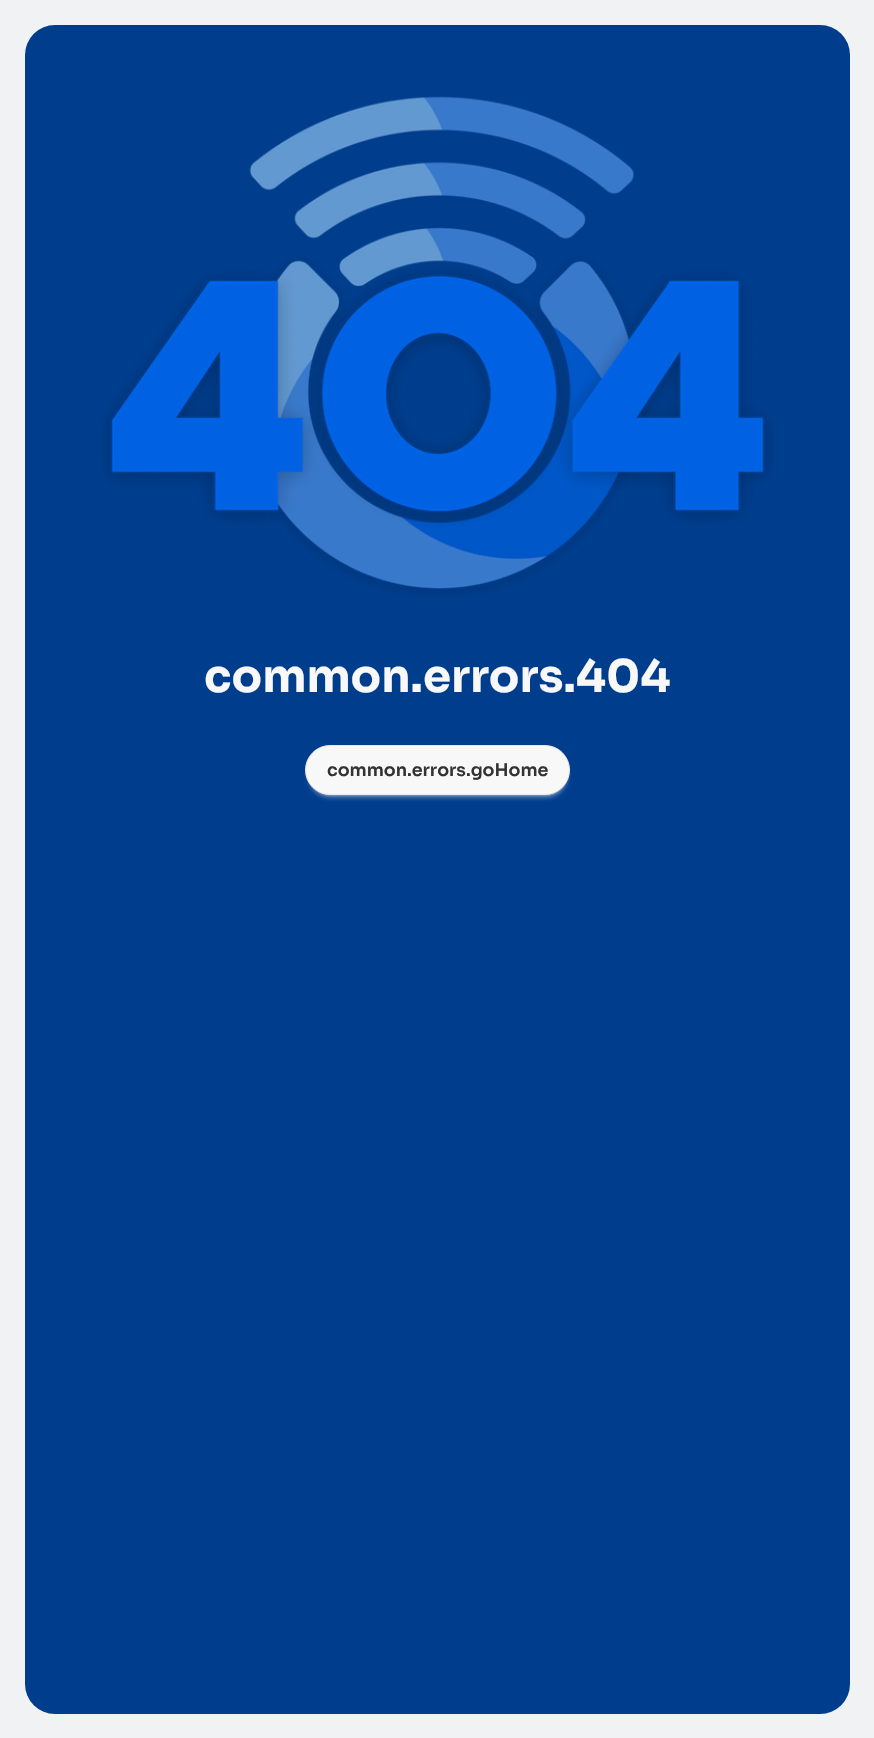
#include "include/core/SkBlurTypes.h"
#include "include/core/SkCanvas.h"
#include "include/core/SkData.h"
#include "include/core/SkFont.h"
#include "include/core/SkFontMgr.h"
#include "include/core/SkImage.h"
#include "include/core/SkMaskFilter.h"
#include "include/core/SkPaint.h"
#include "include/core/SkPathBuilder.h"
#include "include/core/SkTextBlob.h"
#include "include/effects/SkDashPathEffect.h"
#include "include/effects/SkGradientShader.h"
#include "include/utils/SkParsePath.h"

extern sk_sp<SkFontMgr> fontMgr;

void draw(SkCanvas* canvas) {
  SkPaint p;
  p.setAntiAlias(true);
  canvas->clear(SkColorSetRGB(240, 242, 244));
  p.setColor(SkColorSetRGB(0, 61, 141));
  canvas->drawRoundRect(SkRect::MakeLTRB(25, 25, 850, 1714), 30, 30, p);
  canvas->drawImageRect(SkImages::DeferredFromEncodedData(SkData::MakeFromFileName("images/1.png")), SkRect::MakeLTRB(101, 96, 774, 597), SkSamplingOptions());
  p.setColor(SkColorSetARGB(77, 248, 248, 248));
  p.setMaskFilter(SkMaskFilter::MakeBlur(kNormal_SkBlurStyle, 2));
  canvas->drawRoundRect(SkRect::MakeLTRB(308, 753, 568, 798), 22.5f, 22.5f, p);
  p.setMaskFilter(nullptr);
  p.setMaskFilter(SkMaskFilter::MakeBlur(kNormal_SkBlurStyle, 1));
  canvas->drawRoundRect(SkRect::MakeLTRB(308, 751, 568, 796), 22.5f, 22.5f, p);
  p.setMaskFilter(nullptr);
  p.setColor(SkColorSetRGB(248, 248, 248));
  canvas->drawRoundRect(SkRect::MakeLTRB(305.5f, 745.5f, 569.5f, 794.5f), 24.5f, 24.5f, p);
  p.setStyle(SkPaint::kStroke_Style);
  p.setStrokeWidth(1);
  p.setColor(SkColorSetRGB(232, 232, 232));
  canvas->drawRoundRect(SkRect::MakeLTRB(305.5f, 745.5f, 569.5f, 794.5f), 24.5f, 24.5f, p);
  SkFont font1(fontMgr->matchFamilyStyle("Sora", SkFontStyle::Bold()), 45);
  font1.setSubpixel(true);
  p.setStyle(SkPaint::kFill_Style);
  p.setColor(SkColorSetRGB(248, 248, 248));
  canvas->drawString("common.errors.404", 204, 692, font1, p);
  SkFont font2(fontMgr->matchFamilyStyle("Sora", SkFontStyle(600, SkFontStyle::kNormal_Width, SkFontStyle::kUpright_Slant)), 17.5f);
  font2.setSubpixel(true);
  p.setColor(SkColorSetRGB(51, 51, 51));
  canvas->drawString("common.errors.goHome", 327, 776, font2, p);
}
